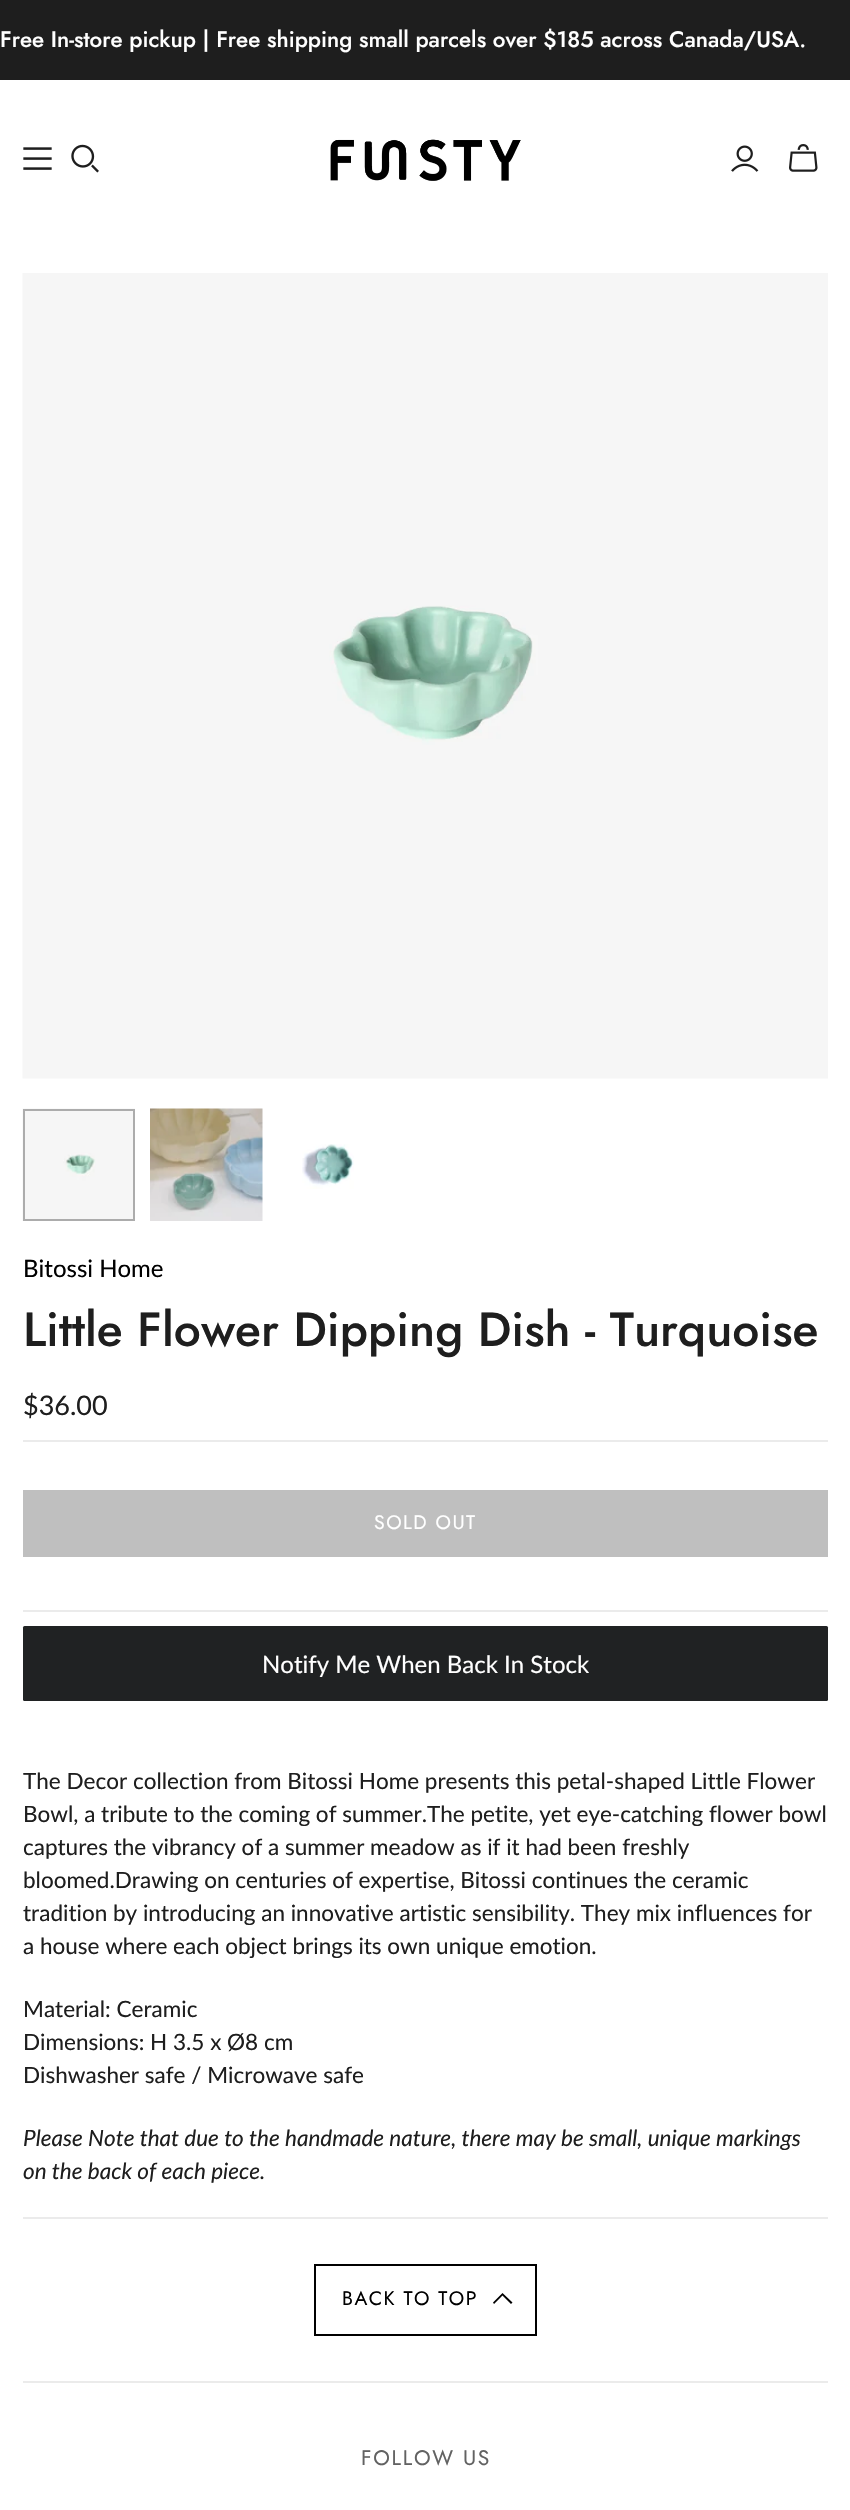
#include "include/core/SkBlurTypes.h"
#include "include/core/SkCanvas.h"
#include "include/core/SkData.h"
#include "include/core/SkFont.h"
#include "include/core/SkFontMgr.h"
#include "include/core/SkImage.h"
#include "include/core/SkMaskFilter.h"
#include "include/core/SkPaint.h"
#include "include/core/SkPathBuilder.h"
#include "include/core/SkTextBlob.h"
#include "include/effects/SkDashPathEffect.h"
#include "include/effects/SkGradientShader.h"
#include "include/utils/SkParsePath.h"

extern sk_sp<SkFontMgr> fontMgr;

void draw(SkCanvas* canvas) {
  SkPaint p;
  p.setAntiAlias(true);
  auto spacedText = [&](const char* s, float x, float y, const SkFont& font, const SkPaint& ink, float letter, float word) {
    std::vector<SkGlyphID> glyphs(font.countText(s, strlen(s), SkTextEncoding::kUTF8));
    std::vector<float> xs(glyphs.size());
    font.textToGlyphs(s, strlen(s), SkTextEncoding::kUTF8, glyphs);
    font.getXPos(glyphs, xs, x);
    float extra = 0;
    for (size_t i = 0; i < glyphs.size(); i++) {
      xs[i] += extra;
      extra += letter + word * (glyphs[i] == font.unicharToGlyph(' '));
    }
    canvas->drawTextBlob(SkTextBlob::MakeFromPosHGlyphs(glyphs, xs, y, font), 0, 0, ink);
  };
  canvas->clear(SK_ColorWHITE);
  p.setColor(SkColorSetRGB(30, 30, 30));
  canvas->drawRect(SkRect::MakeLTRB(0, 0, 850, 80), p);
  canvas->drawImageRect(SkImages::DeferredFromEncodedData(SkData::MakeFromFileName("images/1.png")), SkRect::MakeLTRB(330, 139, 521, 181), SkSamplingOptions());
  canvas->drawImageRect(SkImages::DeferredFromEncodedData(SkData::MakeFromFileName("images/2.png")), SkRect::MakeLTRB(23, 147, 52, 170), SkSamplingOptions());
  canvas->drawImageRect(SkImages::DeferredFromEncodedData(SkData::MakeFromFileName("images/3.png")), SkRect::MakeLTRB(71, 144, 99, 173), SkSamplingOptions());
  canvas->drawImageRect(SkImages::DeferredFromEncodedData(SkData::MakeFromFileName("images/4.png")), SkRect::MakeLTRB(731, 145, 759, 172), SkSamplingOptions());
  canvas->drawImageRect(SkImages::DeferredFromEncodedData(SkData::MakeFromFileName("images/5.png")), SkRect::MakeLTRB(789, 144, 818, 172), SkSamplingOptions());
  canvas->drawImageRect(SkImages::DeferredFromEncodedData(SkData::MakeFromFileName("images/6.png")), SkRect::MakeLTRB(22, 273, 828, 1079), SkSamplingOptions());
  canvas->drawImageRect(SkImages::DeferredFromEncodedData(SkData::MakeFromFileName("images/7.png")), SkRect::MakeLTRB(22, 1108, 135, 1221), SkSamplingOptions());
  p.setStyle(SkPaint::kStroke_Style);
  p.setStrokeWidth(2);
  p.setColor(SkColorSetRGB(172, 172, 172));
  canvas->drawRect(SkRect::MakeLTRB(24, 1110, 134, 1220), p);
  canvas->drawImageRect(SkImages::DeferredFromEncodedData(SkData::MakeFromFileName("images/8.png")), SkRect::MakeLTRB(150, 1108, 263, 1221), SkSamplingOptions());
  canvas->drawImageRect(SkImages::DeferredFromEncodedData(SkData::MakeFromFileName("images/9.png")), SkRect::MakeLTRB(302, 1144, 354, 1189), SkSamplingOptions());
  p.setStyle(SkPaint::kFill_Style);
  p.setColor(SkColorSetRGB(235, 235, 235));
  canvas->drawRect(SkRect::MakeLTRB(23, 1440, 828, 1442), p);
  canvas->drawRect(SkRect::MakeLTRB(23, 1610, 828, 1612), p);
  p.setColor(SkColorSetRGB(191, 191, 191));
  canvas->drawRect(SkRect::MakeLTRB(23, 1490, 828, 1557), p);
  p.setColor(SkColorSetRGB(32, 34, 35));
  canvas->drawRoundRect(SkRect::MakeLTRB(23, 1626, 828, 1701), 1.5f, 1.5f, p);
  p.setColor(SkColorSetRGB(235, 235, 235));
  canvas->drawRect(SkRect::MakeLTRB(23, 2217, 828, 2219), p);
  p.setStyle(SkPaint::kStroke_Style);
  p.setColor(SK_ColorBLACK);
  canvas->drawRect(SkRect::MakeLTRB(315, 2265, 536, 2335), p);
  p.setStyle(SkPaint::kFill_Style);
  canvas->drawPath(SkPathBuilder(SkPathFillType::kEvenOdd).moveTo(502.5f, 2295.5f).lineTo(511, 2304).lineTo(512.5f, 2302.5f).lineTo(502.5f, 2293).lineTo(493, 2302.5f).lineTo(494, 2304).close().detach(), p);
  p.setColor(SkColorSetRGB(235, 235, 235));
  canvas->drawRect(SkRect::MakeLTRB(23, 2381, 828, 2383), p);
  SkFont font1(fontMgr->matchFamilyStyle("Jost", SkFontStyle(500, SkFontStyle::kNormal_Width, SkFontStyle::kUpright_Slant)), 22.4f);
  font1.setSubpixel(true);
  p.setColor(SK_ColorWHITE);
  canvas->drawString("Free In-store pickup | Free shipping small parcels over $185 across Canada/USA.", 0, 47, font1, p);
  SkFont font2(fontMgr->matchFamilyStyle("Lato", SkFontStyle::Normal()), 24);
  font2.setSubpixel(true);
  p.setColor(SK_ColorBLACK);
  canvas->drawString("Bitossi Home", 23, 1277, font2, p);
  SkFont font3(fontMgr->matchFamilyStyle("Jost", SkFontStyle(500, SkFontStyle::kNormal_Width, SkFontStyle::kUpright_Slant)), 48);
  font3.setSubpixel(true);
  p.setColor(SkColorSetRGB(30, 30, 30));
  canvas->drawString("Little Flower Dipping Dish - Turquoise", 23, 1346, font3, p);
  SkFont font4(fontMgr->matchFamilyStyle("Lato", SkFontStyle::Normal()), 27);
  font4.setSubpixel(true);
  canvas->drawString("$36.00", 23, 1415, font4, p);
  SkFont font5(fontMgr->matchFamilyStyle("Jost", SkFontStyle::Normal()), 19.5f);
  font5.setSubpixel(true);
  p.setColor(SK_ColorWHITE);
  spacedText("SOLD OUT", 374, 1529, font5, p, 1.5f, 0);
  canvas->drawString("Notify Me When Back In Stock", 262, 1673, font2, p);
  SkFont font6(fontMgr->matchFamilyStyle("Lato", SkFontStyle::Normal()), 22.5f);
  font6.setSubpixel(true);
  p.setColor(SkColorSetRGB(30, 30, 30));
  canvas->drawString("The Decor collection from Bitossi Home presents this petal-shaped Little Flower", 23, 1789, font6, p);
  canvas->drawString("Bowl, a tribute to the coming of summer.The petite, yet eye-catching flower bowl", 23, 1822, font6, p);
  canvas->drawString("captures the vibrancy of a summer meadow as if it had been freshly", 23, 1855, font6, p);
  canvas->drawString("bloomed.Drawing on centuries of expertise, Bitossi continues the ceramic", 23, 1888, font6, p);
  canvas->drawString("tradition by introducing an innovative artistic sensibility. They mix influences for", 23, 1921, font6, p);
  canvas->drawString("a house where each object brings its own unique emotion.", 23, 1954, font6, p);
  canvas->drawString("Material: Ceramic", 23, 2017, font6, p);
  canvas->drawString("Dimensions: H 3.5 x Ø8 cm", 23, 2050, font6, p);
  canvas->drawString("Dishwasher safe / Microwave safe", 23, 2083, font6, p);
  SkFont font7(fontMgr->matchFamilyStyle("Lato", SkFontStyle::Italic()), 22.5f);
  font7.setSubpixel(true);
  canvas->drawString("Please Note that due to the handmade nature, there may be small, unique markings", 23, 2146, font7, p);
  canvas->drawString("on the back of each piece.", 23, 2179, font7, p);
  p.setColor(SK_ColorBLACK);
  spacedText("BACK TO TOP", 342, 2305, font5, p, 1.5f, 0);
  SkFont font8(fontMgr->matchFamilyStyle("Jost", SkFontStyle::Normal()), 21);
  font8.setSubpixel(true);
  p.setColor(SkColorSetRGB(98, 98, 98));
  spacedText("FOLLOW US", 361, 2465, font8, p, 1.75f, 0);
}
